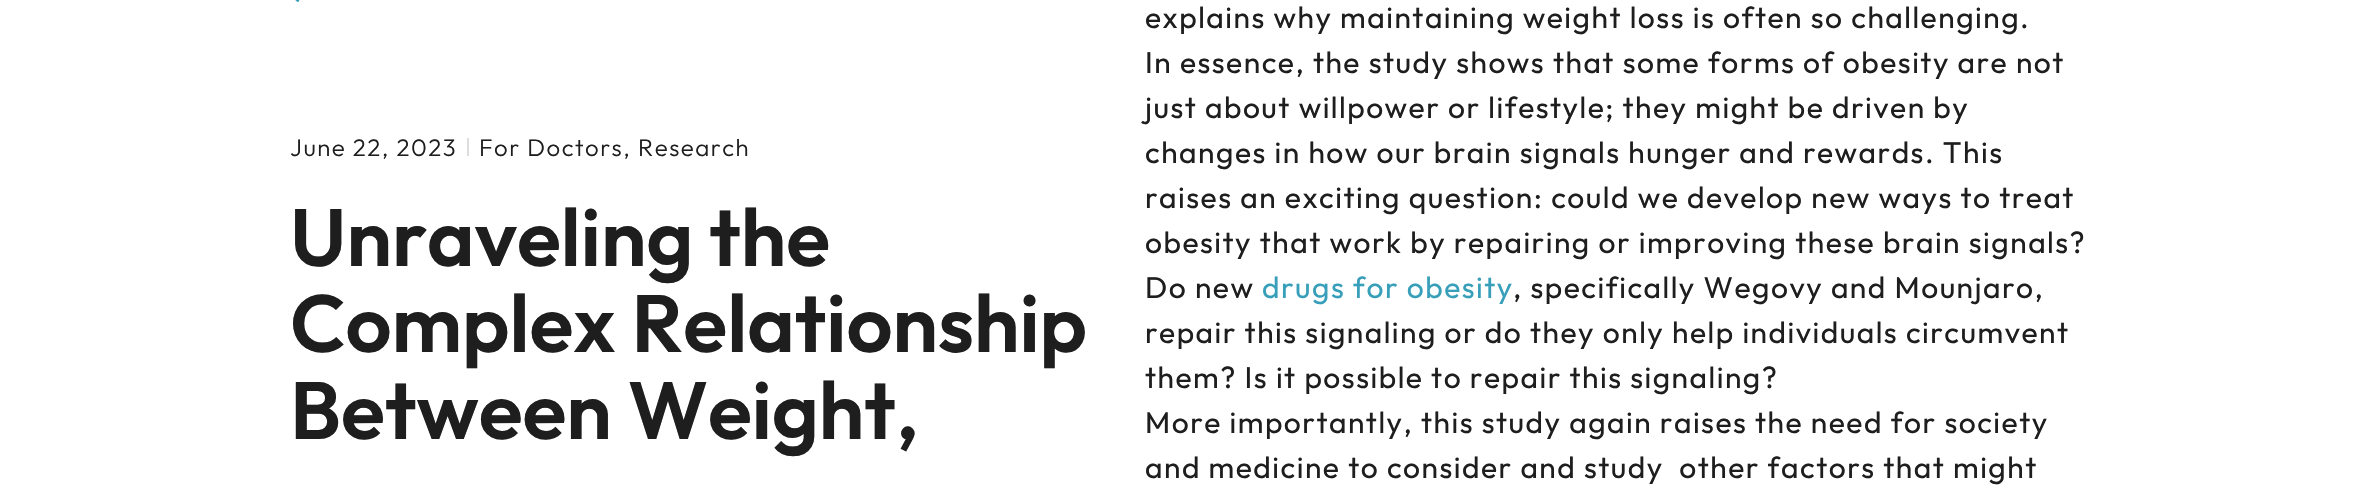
#include "include/core/SkBlurTypes.h"
#include "include/core/SkCanvas.h"
#include "include/core/SkData.h"
#include "include/core/SkFont.h"
#include "include/core/SkFontMgr.h"
#include "include/core/SkImage.h"
#include "include/core/SkMaskFilter.h"
#include "include/core/SkPaint.h"
#include "include/core/SkPathBuilder.h"
#include "include/core/SkTextBlob.h"
#include "include/effects/SkDashPathEffect.h"
#include "include/effects/SkGradientShader.h"
#include "include/utils/SkParsePath.h"

extern sk_sp<SkFontMgr> fontMgr;

void draw(SkCanvas* canvas) {
  SkPaint p;
  p.setAntiAlias(true);
  auto spacedText = [&](const char* s, float x, float y, const SkFont& font, const SkPaint& ink, float letter, float word) {
    std::vector<SkGlyphID> glyphs(font.countText(s, strlen(s), SkTextEncoding::kUTF8));
    std::vector<float> xs(glyphs.size());
    font.textToGlyphs(s, strlen(s), SkTextEncoding::kUTF8, glyphs);
    font.getXPos(glyphs, xs, x);
    float extra = 0;
    for (size_t i = 0; i < glyphs.size(); i++) {
      xs[i] += extra;
      extra += letter + word * (glyphs[i] == font.unicharToGlyph(' '));
    }
    canvas->drawTextBlob(SkTextBlob::MakeFromPosHGlyphs(glyphs, xs, y, font), 0, 0, ink);
  };
  canvas->clear(SK_ColorWHITE);
  canvas->drawImageRect(SkImages::DeferredFromEncodedData(SkData::MakeFromFileName("images/1.png")), SkRect::MakeLTRB(295, 0, 300, 2), SkSamplingOptions());
  p.setColor(SkColorSetRGB(221, 221, 221));
  canvas->drawRect(SkRect::MakeLTRB(467, 138, 469, 156), p);
  SkFont font1(fontMgr->matchFamilyStyle("Outfit", SkFontStyle(300, SkFontStyle::kNormal_Width, SkFontStyle::kUpright_Slant)), 24);
  font1.setSubpixel(true);
  p.setColor(SkColorSetRGB(30, 30, 30));
  spacedText("June 22, 2023", 290, 156, font1, p, 1.5f, 0);
  spacedText("For Doctors, Research", 479, 156, font1, p, 1.5f, 0);
  SkFont font2(fontMgr->matchFamilyStyle("Outfit", SkFontStyle(600, SkFontStyle::kNormal_Width, SkFontStyle::kUpright_Slant)), 81);
  font2.setSubpixel(true);
  canvas->drawString("Unraveling the", 290, 266, font2, p);
  canvas->drawString("Complex Relationship", 290, 352, font2, p);
  canvas->drawString("Between Weight,", 290, 439, font2, p);
  SkFont font3(fontMgr->matchFamilyStyle("Outfit", SkFontStyle::Normal()), 30);
  font3.setSubpixel(true);
  spacedText("explains why maintaining weight loss is often so challenging.", 1145, 28, font3, p, 1.5f, 0);
  spacedText("In essence, the study shows that some forms of obesity are not", 1145, 73, font3, p, 1.5f, 0);
  spacedText("just about willpower or lifestyle; they might be driven by", 1145, 118, font3, p, 1.5f, 0);
  spacedText("changes in how our brain signals hunger and rewards. This", 1145, 163, font3, p, 1.5f, 0);
  spacedText("raises an exciting question: could we develop new ways to treat", 1145, 208, font3, p, 1.5f, 0);
  spacedText("obesity that work by repairing or improving these brain signals?", 1145, 253, font3, p, 1.5f, 0);
  spacedText("Do new", 1145, 298, font3, p, 1.5f, 0);
  p.setColor(SkColorSetRGB(56, 159, 186));
  spacedText("drugs for obesity", 1262, 298, font3, p, 1.5f, 0);
  p.setColor(SkColorSetRGB(30, 30, 30));
  spacedText(", specifically Wegovy and Mounjaro,", 1513, 298, font3, p, 1.5f, 0);
  spacedText("repair this signaling or do they only help individuals circumvent", 1145, 343, font3, p, 1.5f, 0);
  spacedText("them? Is it possible to repair this signaling?", 1145, 388, font3, p, 1.5f, 0);
  spacedText("More importantly, this study again raises the need for society", 1145, 433, font3, p, 1.5f, 0);
  spacedText("and medicine to consider and study  other factors that might", 1145, 478, font3, p, 1.5f, 0);
}
